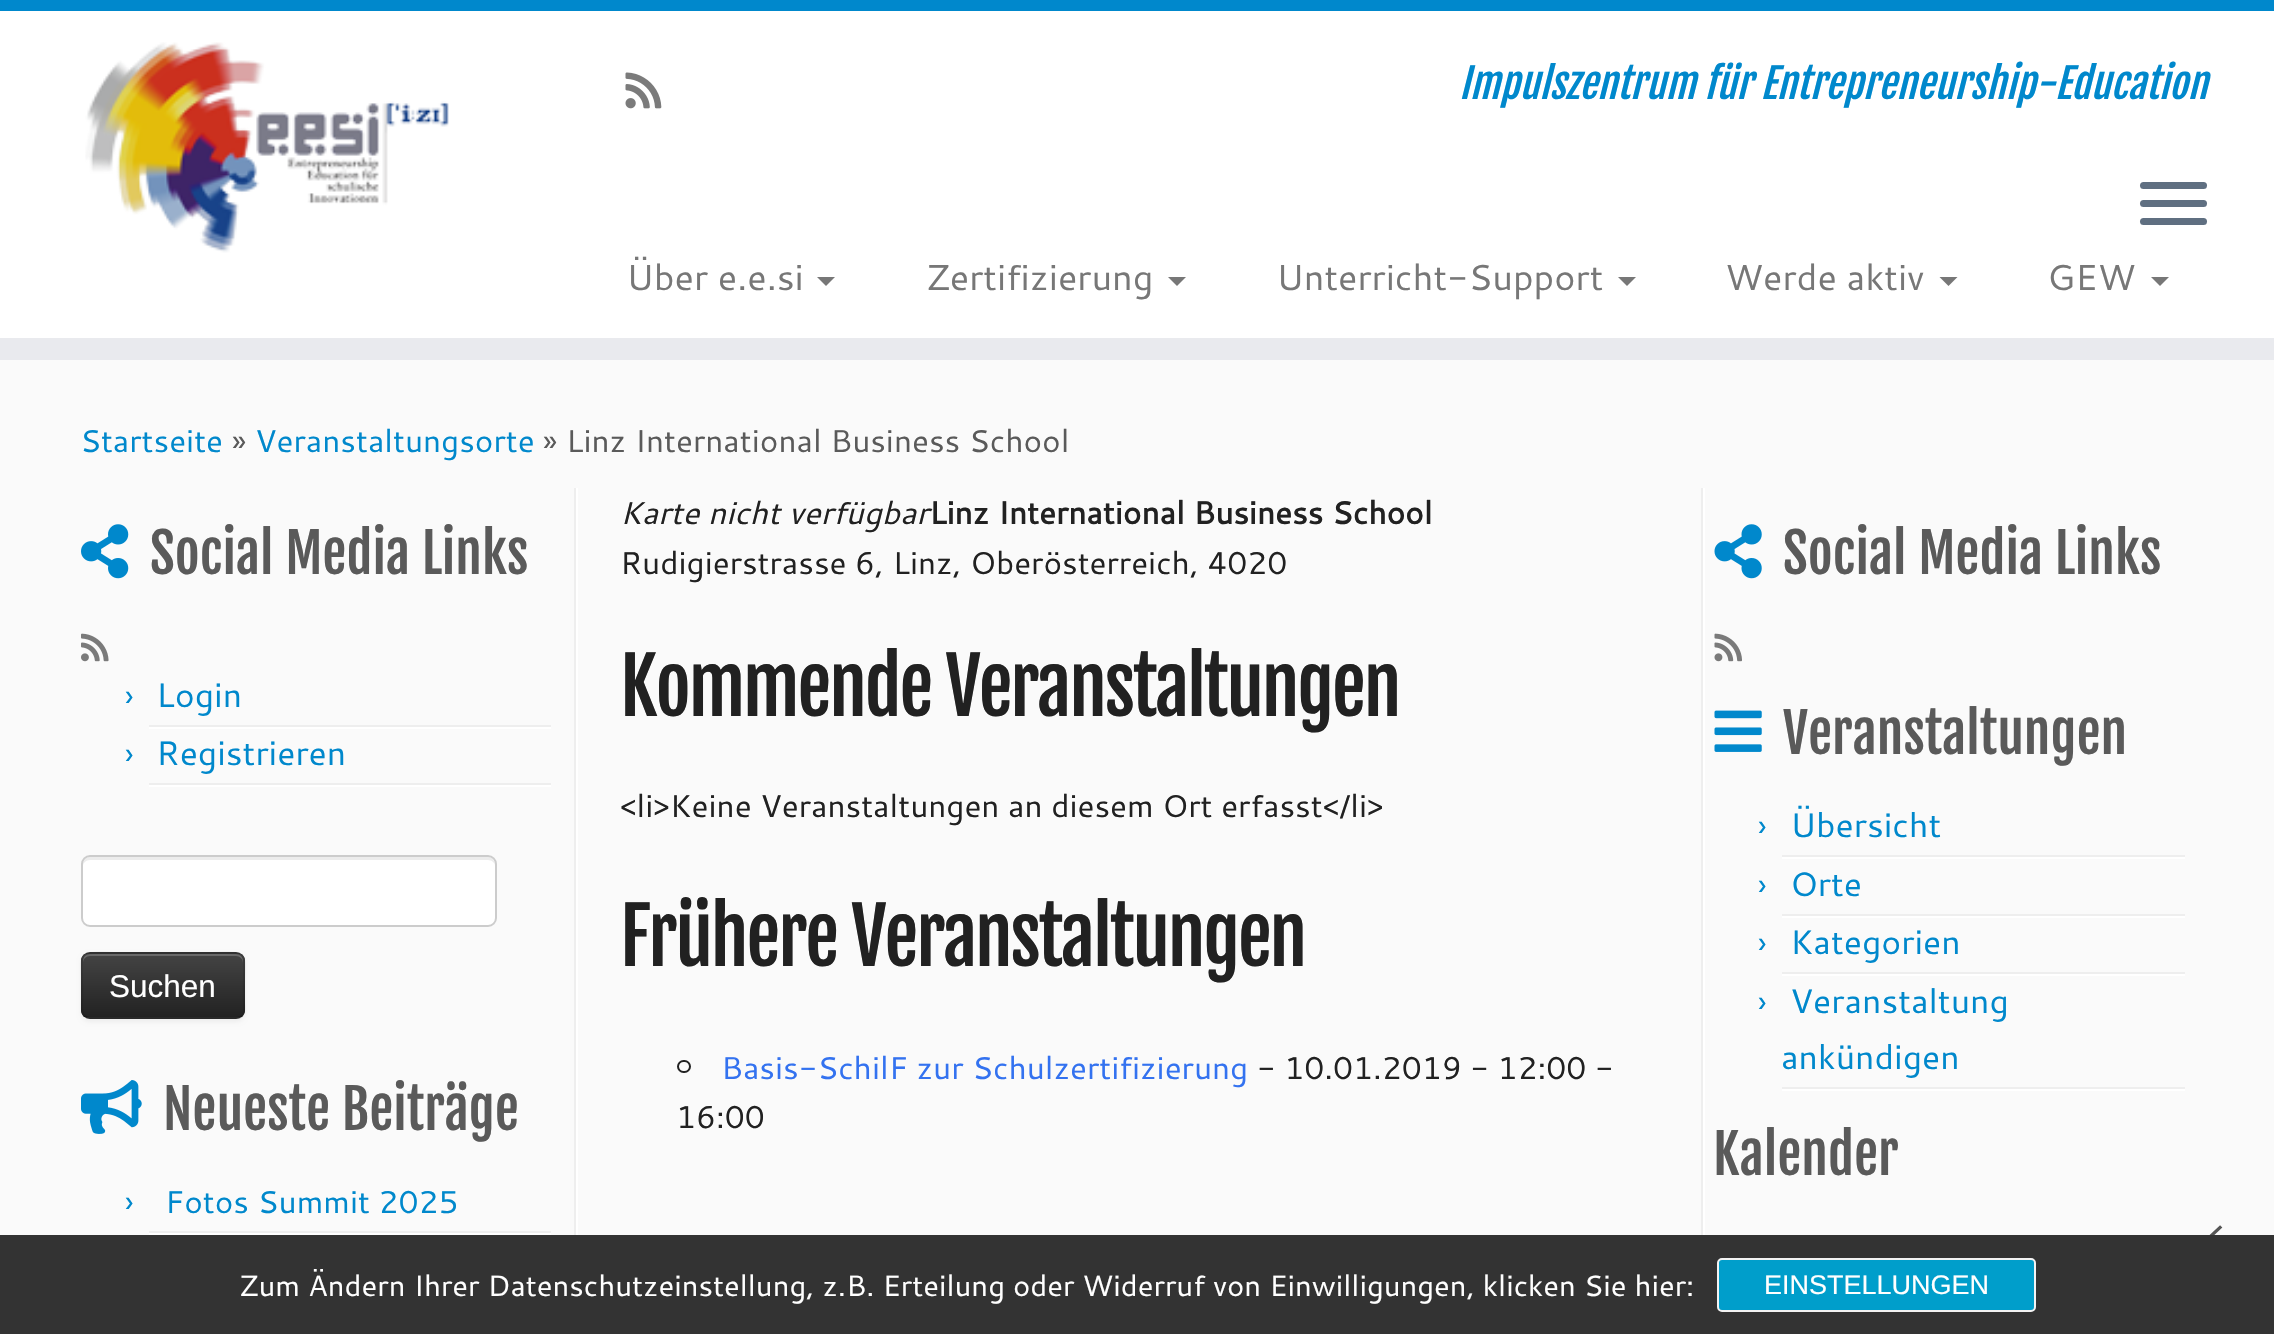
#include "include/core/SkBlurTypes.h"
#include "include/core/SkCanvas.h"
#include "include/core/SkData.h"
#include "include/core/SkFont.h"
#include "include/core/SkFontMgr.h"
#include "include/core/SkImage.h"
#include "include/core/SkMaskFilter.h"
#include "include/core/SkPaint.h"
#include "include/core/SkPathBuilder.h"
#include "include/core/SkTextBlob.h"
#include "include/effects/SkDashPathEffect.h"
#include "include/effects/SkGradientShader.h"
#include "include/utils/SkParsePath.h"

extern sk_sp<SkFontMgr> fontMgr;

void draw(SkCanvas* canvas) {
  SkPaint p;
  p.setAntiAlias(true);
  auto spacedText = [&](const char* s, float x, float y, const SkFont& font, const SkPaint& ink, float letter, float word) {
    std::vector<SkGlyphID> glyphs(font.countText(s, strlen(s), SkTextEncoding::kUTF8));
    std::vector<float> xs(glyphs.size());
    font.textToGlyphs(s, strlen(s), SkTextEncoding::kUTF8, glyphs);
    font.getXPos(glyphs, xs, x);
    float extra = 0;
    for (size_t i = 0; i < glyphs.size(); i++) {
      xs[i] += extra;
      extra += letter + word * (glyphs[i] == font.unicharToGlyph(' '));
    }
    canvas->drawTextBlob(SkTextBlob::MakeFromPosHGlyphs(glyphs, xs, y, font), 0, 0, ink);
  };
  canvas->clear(SkColorSetRGB(250, 250, 250));
  p.setColor(SK_ColorWHITE);
  canvas->drawRect(SkRect::MakeLTRB(0, 11, 2274, 338), p);
  p.setColor(SkColorSetRGB(0, 136, 204));
  canvas->drawRect(SkRect::MakeLTRB(0, 0, 2274, 11), p);
  p.setColor(SkColorSetRGB(233, 234, 238));
  canvas->drawRect(SkRect::MakeLTRB(0, 338, 2274, 360), p);
  canvas->drawImageRect(SkImages::DeferredFromEncodedData(SkData::MakeFromFileName("images/1.png")), SkRect::MakeLTRB(85, 42, 449, 253), SkSamplingOptions());
  canvas->drawImageRect(SkImages::DeferredFromEncodedData(SkData::MakeFromFileName("images/2.png")), SkRect::MakeLTRB(625, 72, 662, 109), SkSamplingOptions());
  p.setColor(SkColorSetRGB(95, 111, 129));
  canvas->drawRoundRect(SkRect::MakeLTRB(2140, 182, 2207, 189), 3.5f, 3.5f, p);
  canvas->drawRoundRect(SkRect::MakeLTRB(2140, 200, 2207, 207), 3.5f, 3.5f, p);
  canvas->drawRoundRect(SkRect::MakeLTRB(2140, 218, 2207, 225), 3.5f, 3.5f, p);
  p.setColor(SkColorSetRGB(119, 119, 119));
  canvas->drawPath(SkPathBuilder().moveTo(817, 277).lineTo(835, 277).lineTo(826, 286).close().detach(), p);
  canvas->drawPath(SkPathBuilder().moveTo(1168, 277).lineTo(1186, 277).lineTo(1177, 286).close().detach(), p);
  canvas->drawPath(SkPathBuilder().moveTo(1618, 277).lineTo(1636, 277).lineTo(1627, 286).close().detach(), p);
  canvas->drawPath(SkPathBuilder().moveTo(1939.5f, 277).lineTo(1957.5f, 277).lineTo(1948.5f, 286).close().detach(), p);
  canvas->drawPath(SkPathBuilder().moveTo(2151, 277).lineTo(2169, 277).lineTo(2160, 286).close().detach(), p);
  p.setColor(SkColorSetRGB(238, 238, 238));
  canvas->drawRect(SkRect::MakeLTRB(574, 488, 576, 1235), p);
  canvas->drawImageRect(SkImages::DeferredFromEncodedData(SkData::MakeFromFileName("images/3.png")), SkRect::MakeLTRB(81, 524, 129, 579), SkSamplingOptions());
  canvas->drawImageRect(SkImages::DeferredFromEncodedData(SkData::MakeFromFileName("images/4.png")), SkRect::MakeLTRB(81, 633, 109, 662), SkSamplingOptions());
  p.setColor(SK_ColorWHITE);
  canvas->drawRect(SkRect::MakeLTRB(576, 488, 578, 1235), p);
  p.setColor(SkColorSetRGB(238, 238, 238));
  canvas->drawRect(SkRect::MakeLTRB(149, 725, 551, 727), p);
  p.setColor(SK_ColorWHITE);
  canvas->drawRect(SkRect::MakeLTRB(149, 727, 551, 729), p);
  p.setColor(SkColorSetRGB(238, 238, 238));
  canvas->drawRect(SkRect::MakeLTRB(149, 783, 551, 785), p);
  p.setColor(SK_ColorWHITE);
  canvas->drawRect(SkRect::MakeLTRB(149, 785, 551, 787), p);
  canvas->drawRoundRect(SkRect::MakeLTRB(81, 855, 497, 927), 9, 9, p);
  p.setColor(SkColorSetRGB(236, 236, 236));
  canvas->drawPath(SkPathBuilder().moveTo(90, 860).lineTo(488, 860).cubicTo(492, 860, 495, 863, 495, 866).cubicTo(495, 862, 493, 857, 488, 857).lineTo(90, 857).cubicTo(85, 857, 83, 862, 83, 866).cubicTo(83, 863, 86, 860, 90, 860).close().detach(), p);
  p.setStyle(SkPaint::kStroke_Style);
  p.setStrokeWidth(2);
  p.setColor(SkColorSetRGB(204, 204, 204));
  canvas->drawRoundRect(SkRect::MakeLTRB(82, 856, 496, 926), 8, 8, p);
  p.setStyle(SkPaint::kFill_Style);
  p.setColor(SkColorSetARGB(13, 0, 0, 0));
  p.setMaskFilter(SkMaskFilter::MakeBlur(kNormal_SkBlurStyle, 2));
  canvas->drawRoundRect(SkRect::MakeLTRB(81, 954, 245, 1022), 9, 9, p);
  p.setMaskFilter(nullptr);
  p.setColor(SkColorSetRGB(54, 54, 54));
  canvas->drawRoundRect(SkRect::MakeLTRB(81, 952, 245, 1019), 9, 9, p);
  canvas->save();
  canvas->clipPath(SkPathBuilder().moveTo(90, 952).lineTo(236, 952).cubicTo(241, 952, 245, 956, 245, 961).lineTo(245, 1010).cubicTo(245, 1015, 241, 1019, 236, 1019).lineTo(90, 1019).cubicTo(85, 1019, 81, 1015, 81, 1010).lineTo(81, 961).cubicTo(81, 956, 85, 952, 90, 952).close().detach(), true);
  {
    const SkColor colors[] = {SkColorSetRGB(68, 68, 68), SkColorSetRGB(34, 34, 34)};
    const float stops[] = {0, 1};
    const SkPoint ends[] = {{163, 954}, {163, 1017}};
    p.setShader(SkGradientShader::MakeLinear(ends, colors, stops, 2, SkTileMode::kClamp));
    p.setAlpha(255);
  }
  canvas->drawRect(SkRect::MakeLTRB(81, 954, 245, 1017), p);
  canvas->restore();
  p.setShader(nullptr);
  p.setColor(SkColorSetARGB(51, 255, 255, 255));
  canvas->drawPath(SkPathBuilder().moveTo(90, 956).lineTo(236, 956).cubicTo(240, 956, 243, 959, 243, 963).lineTo(243, 961).cubicTo(243, 957, 240, 954, 236, 954).lineTo(90, 954).cubicTo(86, 954, 83, 957, 83, 961).lineTo(83, 963).cubicTo(83, 959, 86, 956, 90, 956).close().detach(), p);
  p.setStyle(SkPaint::kStroke_Style);
  p.setStrokeWidth(2.2f);
  p.setColor(SkColorSetARGB(64, 0, 0, 0));
  canvas->drawPath(SkPathBuilder().moveTo(242, 1016).cubicTo(240.5f, 1017.5f, 238.5f, 1018, 236, 1018).lineTo(90, 1018).cubicTo(88, 1018, 86, 1017.5f, 84.5f, 1016).detach(), p);
  p.setColor(SkColorSetARGB(26, 0, 0, 0));
  canvas->drawPath(SkPathBuilder().moveTo(84.5f, 1016).cubicTo(81, 1012.5f, 82, 1006.5f, 82, 1002).lineTo(82, 985.5f).cubicTo(82, 948.5f, 76.5f, 953, 114.5f, 953).lineTo(212, 953).cubicTo(249.5f, 953, 244, 948.5f, 244, 985.5f).lineTo(244, 1002).cubicTo(244, 1006.5f, 245.5f, 1012.5f, 242, 1016).detach(), p);
  canvas->drawImageRect(SkImages::DeferredFromEncodedData(SkData::MakeFromFileName("images/5.png")), SkRect::MakeLTRB(81, 1080, 142, 1134), SkSamplingOptions());
  p.setStyle(SkPaint::kFill_Style);
  p.setColor(SkColorSetRGB(238, 238, 238));
  canvas->drawRect(SkRect::MakeLTRB(149, 1231, 551, 1233), p);
  p.setColor(SK_ColorWHITE);
  canvas->drawRect(SkRect::MakeLTRB(149, 1233, 551, 1235), p);
  p.setStyle(SkPaint::kStroke_Style);
  p.setStrokeWidth(2);
  p.setColor(SkColorSetRGB(33, 33, 33));
  canvas->drawRoundRect(SkRect::MakeLTRB(678, 1061, 690, 1072), 5.5f, 5.5f, p);
  p.setStyle(SkPaint::kFill_Style);
  p.setColor(SkColorSetRGB(238, 238, 238));
  canvas->drawRect(SkRect::MakeLTRB(1701, 488, 1703, 1235), p);
  p.setColor(SK_ColorWHITE);
  canvas->drawRect(SkRect::MakeLTRB(1703, 488, 1705, 1235), p);
  canvas->drawImageRect(SkImages::DeferredFromEncodedData(SkData::MakeFromFileName("images/6.png")), SkRect::MakeLTRB(1714, 524, 1762, 579), SkSamplingOptions());
  canvas->drawImageRect(SkImages::DeferredFromEncodedData(SkData::MakeFromFileName("images/7.png")), SkRect::MakeLTRB(1714, 633, 1742, 662), SkSamplingOptions());
  canvas->drawImageRect(SkImages::DeferredFromEncodedData(SkData::MakeFromFileName("images/8.png")), SkRect::MakeLTRB(1714, 710, 1762, 752), SkSamplingOptions());
  p.setColor(SkColorSetRGB(238, 238, 238));
  canvas->drawRect(SkRect::MakeLTRB(1782, 855, 2185, 857), p);
  p.setColor(SK_ColorWHITE);
  canvas->drawRect(SkRect::MakeLTRB(1782, 857, 2185, 859), p);
  p.setColor(SkColorSetRGB(238, 238, 238));
  canvas->drawRect(SkRect::MakeLTRB(1782, 914, 2185, 916), p);
  p.setColor(SK_ColorWHITE);
  canvas->drawRect(SkRect::MakeLTRB(1782, 916, 2185, 918), p);
  p.setColor(SkColorSetRGB(238, 238, 238));
  canvas->drawRect(SkRect::MakeLTRB(1782, 972, 2185, 974), p);
  p.setColor(SK_ColorWHITE);
  canvas->drawRect(SkRect::MakeLTRB(1782, 974, 2185, 976), p);
  p.setColor(SkColorSetRGB(238, 238, 238));
  canvas->drawRect(SkRect::MakeLTRB(1782, 1087, 2185, 1089), p);
  p.setColor(SK_ColorWHITE);
  canvas->drawRect(SkRect::MakeLTRB(1782, 1089, 2185, 1091), p);
  p.setStyle(SkPaint::kStroke_Style);
  p.setStrokeWidth(3.3f);
  p.setStrokeCap(SkPaint::kSquare_Cap);
  p.setColor(SkColorSetRGB(85, 85, 85));
  canvas->drawPath(SkPathBuilder().moveTo(2220, 1270).lineTo(2197, 1249).lineTo(2220, 1227.5f).detach(), p);
  p.setStyle(SkPaint::kFill_Style);
  p.setColor(SkColorSetRGB(51, 51, 51));
  canvas->drawRect(SkRect::MakeLTRB(0, 1235, 2274, 1334), p);
  p.setColor(SkColorSetRGB(0, 158, 203));
  canvas->drawRoundRect(SkRect::MakeLTRB(1718, 1259, 2035, 1311), 4, 4, p);
  p.setStyle(SkPaint::kStroke_Style);
  p.setStrokeWidth(2);
  p.setStrokeCap(SkPaint::kButt_Cap);
  p.setColor(SkColorSetRGB(243, 243, 243));
  canvas->drawRoundRect(SkRect::MakeLTRB(1718, 1259, 2035, 1311), 4, 4, p);
  SkFont font1(fontMgr->matchFamilyStyle("Fjalla One", SkFontStyle::Italic()), 40.5f);
  font1.setSubpixel(true);
  p.setStyle(SkPaint::kFill_Style);
  p.setColor(SkColorSetRGB(0, 136, 204));
  canvas->drawString("Impulszentrum für Entrepreneurship-Education", 1459, 99, font1, p);
  SkFont font2(fontMgr->matchFamilyStyle("Cantarell", SkFontStyle::Normal()), 36);
  font2.setSubpixel(true);
  p.setColor(SkColorSetRGB(119, 119, 119));
  canvas->drawString("Über e.e.si", 626, 290, font2, p);
  canvas->drawString("Zertifizierung", 926, 290, font2, p);
  canvas->drawString("Unterricht-Support", 1276, 290, font2, p);
  canvas->drawString("Werde aktiv", 1725, 290, font2, p);
  canvas->drawString("GEW", 2047, 290, font2, p);
  SkFont font3(fontMgr->matchFamilyStyle("Cantarell", SkFontStyle::Normal()), 31.5f);
  font3.setSubpixel(true);
  p.setColor(SkColorSetRGB(0, 136, 204));
  canvas->drawString("Startseite", 80, 452, font3, p);
  p.setColor(SkColorSetRGB(90, 90, 90));
  canvas->drawString("»", 232, 452, font3, p);
  p.setColor(SkColorSetRGB(0, 136, 204));
  canvas->drawString("Veranstaltungsorte", 255, 452, font3, p);
  p.setColor(SkColorSetRGB(90, 90, 90));
  canvas->drawString("» Linz International Business School", 543, 452, font3, p);
  SkFont font4(fontMgr->matchFamilyStyle("Fjalla One", SkFontStyle::Normal()), 54);
  font4.setSubpixel(true);
  canvas->drawString("Social Media Links", 150, 574, font4, p);
  p.setColor(SkColorSetRGB(0, 136, 204));
  canvas->drawString("›", 125, 707, font3, p);
  SkFont font5(fontMgr->matchFamilyStyle("Cantarell", SkFontStyle::Normal()), 33.75f);
  font5.setSubpixel(true);
  canvas->drawString("Login", 156, 707, font5, p);
  canvas->drawString("›", 125, 765, font3, p);
  canvas->drawString("Registrieren", 156, 765, font5, p);
  SkFont font6(fontMgr->matchFamilyStyle("Liberation Sans", SkFontStyle::Normal()), 31.5f);
  font6.setSubpixel(true);
  p.setColor(SK_ColorWHITE);
  canvas->drawString("Suchen", 109, 997, font6, p);
  p.setColor(SkColorSetRGB(90, 90, 90));
  canvas->drawString("Neueste Beiträge", 163, 1130, font4, p);
  p.setColor(SkColorSetRGB(0, 136, 204));
  canvas->drawString("›", 125, 1213, font3, p);
  canvas->drawString("Fotos Summit 2025", 165, 1213, font3, p);
  SkFont font7(fontMgr->matchFamilyStyle("Cantarell", SkFontStyle::Italic()), 31.5f);
  font7.setSubpixel(true);
  p.setColor(SkColorSetRGB(33, 33, 33));
  canvas->drawString("Karte nicht verfügbar", 620, 524, font7, p);
  SkFont font8(fontMgr->matchFamilyStyle("Cantarell", SkFontStyle::Bold()), 31.5f);
  font8.setSubpixel(true);
  canvas->drawString("Linz International Business School", 929, 524, font8, p);
  canvas->drawString("Rudigierstrasse 6, Linz, Oberösterreich, 4020", 620, 574, font3, p);
  SkFont font9(fontMgr->matchFamilyStyle("Fjalla One", SkFontStyle::Normal()), 76.5f);
  font9.setSubpixel(true);
  spacedText("Kommende Veranstaltungen", 620, 716, font9, p, -2.25f, 0);
  canvas->drawString("<li>Keine Veranstaltungen an diesem Ort erfasst</li>", 620, 817, font3, p);
  spacedText("Frühere Veranstaltungen", 620, 966, font9, p, -2.25f, 0);
  p.setColor(SkColorSetRGB(51, 114, 240));
  canvas->drawString("Basis-SchilF zur Schulzertifizierung", 721, 1079, font3, p);
  p.setColor(SkColorSetRGB(33, 33, 33));
  canvas->drawString("- 10.01.2019 - 12:00 -", 1257, 1079, font3, p);
  canvas->drawString("16:00", 676, 1128, font3, p);
  p.setColor(SkColorSetRGB(90, 90, 90));
  canvas->drawString("Social Media Links", 1783, 574, font4, p);
  canvas->drawString("Veranstaltungen", 1783, 754, font4, p);
  p.setColor(SkColorSetRGB(0, 136, 204));
  canvas->drawString("›", 1758, 837, font3, p);
  canvas->drawString("Übersicht", 1790, 837, font5, p);
  canvas->drawString("›", 1758, 896, font3, p);
  canvas->drawString("Orte", 1790, 896, font5, p);
  canvas->drawString("›", 1758, 954, font3, p);
  canvas->drawString("Kategorien", 1790, 954, font5, p);
  canvas->drawString("›", 1758, 1013, font3, p);
  canvas->drawString("Veranstaltung", 1790, 1013, font5, p);
  canvas->drawString("ankündigen", 1781, 1069, font5, p);
  p.setColor(SkColorSetRGB(90, 90, 90));
  canvas->drawString("Kalender", 1713, 1175, font4, p);
  SkFont font10(fontMgr->matchFamilyStyle("Cantarell", SkFontStyle::Normal()), 29.25f);
  font10.setSubpixel(true);
  p.setColor(SK_ColorWHITE);
  canvas->drawString("Zum Ändern Ihrer Datenschutzeinstellung, z.B. Erteilung oder Widerruf von Einwilligungen, klicken Sie hier:", 239, 1296, font10, p);
  SkFont font11(fontMgr->matchFamilyStyle("Liberation Sans", SkFontStyle::Normal()), 27);
  font11.setSubpixel(true);
  canvas->drawString("EINSTELLUNGEN", 1764, 1294, font11, p);
}
